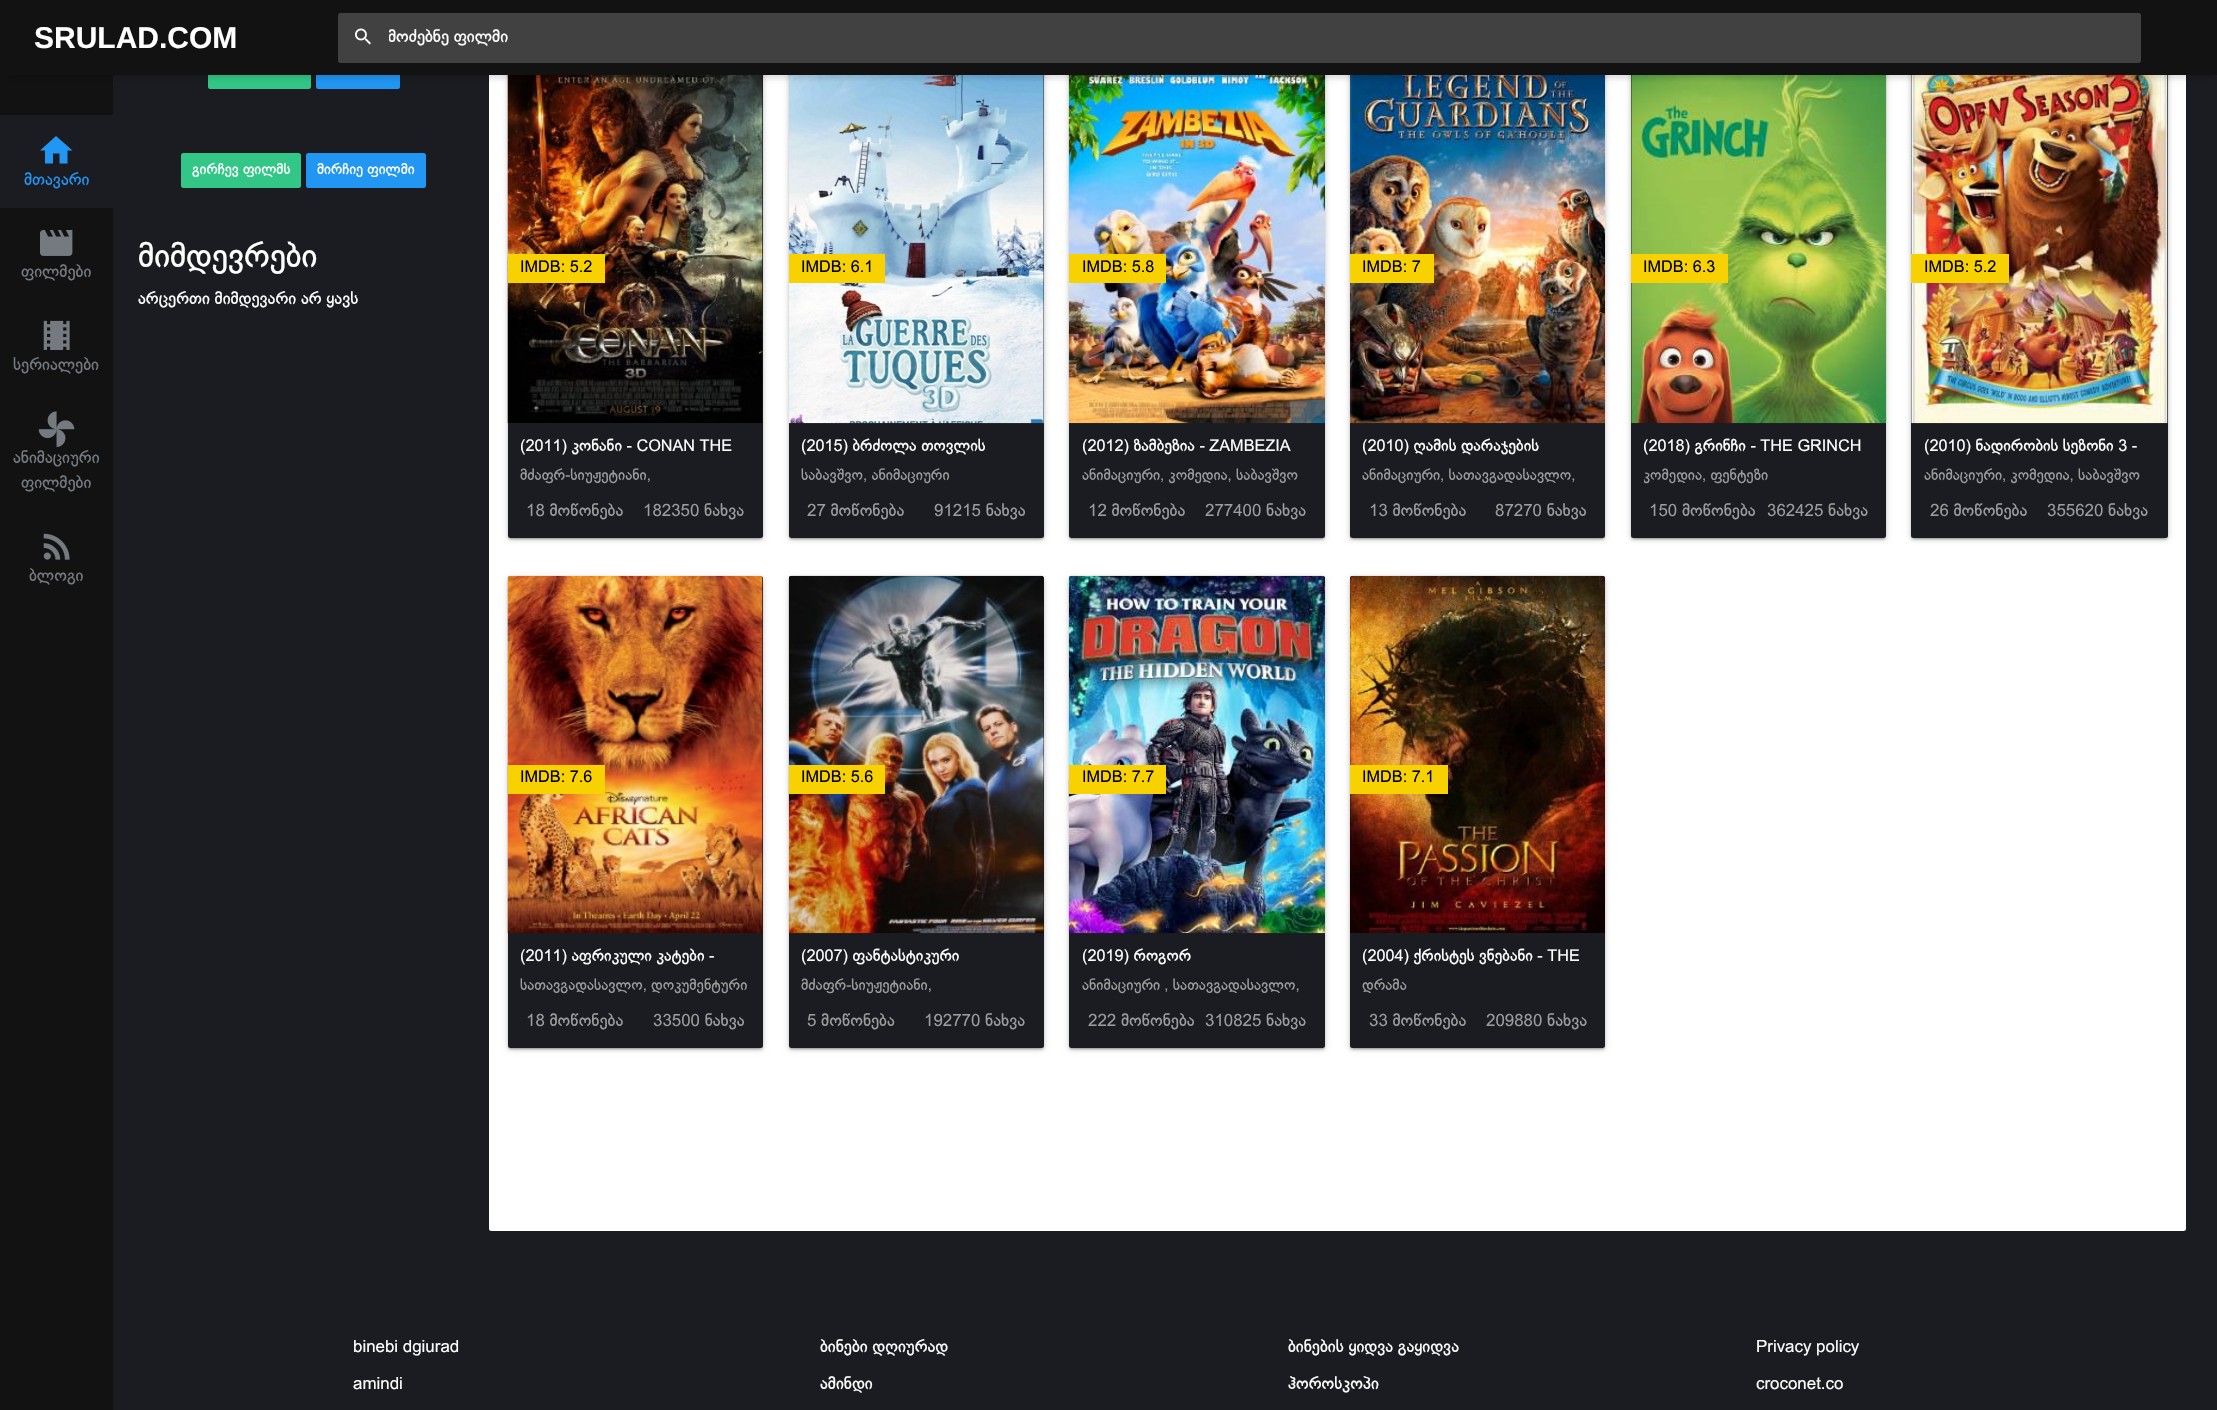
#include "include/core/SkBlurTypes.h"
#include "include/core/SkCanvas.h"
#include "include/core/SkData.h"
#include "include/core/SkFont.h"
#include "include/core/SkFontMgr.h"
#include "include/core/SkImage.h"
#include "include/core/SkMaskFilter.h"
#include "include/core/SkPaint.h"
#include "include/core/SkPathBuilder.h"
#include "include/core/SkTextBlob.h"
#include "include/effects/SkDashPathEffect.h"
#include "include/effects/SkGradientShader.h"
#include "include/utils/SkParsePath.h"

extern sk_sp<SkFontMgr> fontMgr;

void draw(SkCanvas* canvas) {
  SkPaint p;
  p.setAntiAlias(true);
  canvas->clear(SkColorSetRGB(26, 28, 33));
  p.setColor(SkColorSetRGB(18, 18, 18));
  canvas->drawRect(SkRect::MakeLTRB(0, 75, 113, 1410), p);
  p.setColor(SkColorSetRGB(50, 199, 135));
  canvas->drawRoundRect(SkRect::MakeLTRB(208, 46, 311, 89), 2.5f, 2.5f, p);
  p.setColor(SkColorSetRGB(33, 150, 243));
  canvas->drawRoundRect(SkRect::MakeLTRB(316, 46, 400, 89), 2.5f, 2.5f, p);
  p.setColor(SK_ColorWHITE);
  canvas->drawRoundRect(SkRect::MakeLTRB(489, -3, 2186, 1231), 2.5f, 2.5f, p);
  p.setColor(SkColorSetARGB(51, 0, 0, 0));
  p.setMaskFilter(SkMaskFilter::MakeBlur(kNormal_SkBlurStyle, 3));
  canvas->drawRoundRect(SkRect::MakeLTRB(508, 68, 763, 539), 2.5f, 2.5f, p);
  p.setMaskFilter(nullptr);
  p.setColor(SkColorSetARGB(31, 0, 0, 0));
  p.setMaskFilter(SkMaskFilter::MakeBlur(kNormal_SkBlurStyle, 0.5f));
  canvas->drawRect(SkRect::MakeLTRB(510, 73, 760, 539), p);
  p.setMaskFilter(nullptr);
  p.setColor(SkColorSetARGB(36, 0, 0, 0));
  p.setMaskFilter(SkMaskFilter::MakeBlur(kNormal_SkBlurStyle, 1));
  canvas->drawRoundRect(SkRect::MakeLTRB(508, 69, 763, 540), 2.5f, 2.5f, p);
  p.setMaskFilter(nullptr);
  p.setColor(SkColorSetRGB(26, 28, 33));
  canvas->drawRoundRect(SkRect::MakeLTRB(508, 66, 763, 538), 2.5f, 2.5f, p);
  canvas->drawImageRect(SkImages::DeferredFromEncodedData(SkData::MakeFromFileName("images/6.png")), SkRect::MakeLTRB(507, 75, 763, 423), SkSamplingOptions());
  p.setColor(SkColorSetARGB(51, 0, 0, 0));
  p.setMaskFilter(SkMaskFilter::MakeBlur(kNormal_SkBlurStyle, 3));
  canvas->drawRoundRect(SkRect::MakeLTRB(789, 68, 1044, 539), 2.5f, 2.5f, p);
  p.setMaskFilter(nullptr);
  p.setColor(SkColorSetARGB(31, 0, 0, 0));
  p.setMaskFilter(SkMaskFilter::MakeBlur(kNormal_SkBlurStyle, 0.5f));
  canvas->drawRect(SkRect::MakeLTRB(791, 73, 1041, 539), p);
  p.setMaskFilter(nullptr);
  p.setColor(SkColorSetARGB(36, 0, 0, 0));
  p.setMaskFilter(SkMaskFilter::MakeBlur(kNormal_SkBlurStyle, 1));
  canvas->drawRoundRect(SkRect::MakeLTRB(789, 69, 1044, 540), 2.5f, 2.5f, p);
  p.setMaskFilter(nullptr);
  p.setColor(SkColorSetRGB(26, 28, 33));
  canvas->drawRoundRect(SkRect::MakeLTRB(789, 66, 1044, 538), 2.5f, 2.5f, p);
  canvas->drawImageRect(SkImages::DeferredFromEncodedData(SkData::MakeFromFileName("images/7.png")), SkRect::MakeLTRB(788, 75, 1044, 424), SkSamplingOptions());
  p.setColor(SkColorSetARGB(51, 0, 0, 0));
  p.setMaskFilter(SkMaskFilter::MakeBlur(kNormal_SkBlurStyle, 3));
  canvas->drawRoundRect(SkRect::MakeLTRB(1069, 68, 1325, 539), 2.5f, 2.5f, p);
  p.setMaskFilter(nullptr);
  p.setColor(SkColorSetARGB(31, 0, 0, 0));
  p.setMaskFilter(SkMaskFilter::MakeBlur(kNormal_SkBlurStyle, 0.5f));
  canvas->drawRect(SkRect::MakeLTRB(1071, 73, 1323, 539), p);
  p.setMaskFilter(nullptr);
  p.setColor(SkColorSetARGB(36, 0, 0, 0));
  p.setMaskFilter(SkMaskFilter::MakeBlur(kNormal_SkBlurStyle, 1));
  canvas->drawRoundRect(SkRect::MakeLTRB(1069, 69, 1325, 540), 2.5f, 2.5f, p);
  p.setMaskFilter(nullptr);
  p.setColor(SkColorSetRGB(26, 28, 33));
  canvas->drawRoundRect(SkRect::MakeLTRB(1069, 66, 1325, 538), 2.5f, 2.5f, p);
  canvas->drawImageRect(SkImages::DeferredFromEncodedData(SkData::MakeFromFileName("images/8.png")), SkRect::MakeLTRB(1068, 75, 1325, 424), SkSamplingOptions());
  p.setColor(SkColorSetARGB(51, 0, 0, 0));
  p.setMaskFilter(SkMaskFilter::MakeBlur(kNormal_SkBlurStyle, 3));
  canvas->drawRoundRect(SkRect::MakeLTRB(1350, 68, 1605, 539), 2.5f, 2.5f, p);
  p.setMaskFilter(nullptr);
  p.setColor(SkColorSetARGB(31, 0, 0, 0));
  p.setMaskFilter(SkMaskFilter::MakeBlur(kNormal_SkBlurStyle, 0.5f));
  canvas->drawRect(SkRect::MakeLTRB(1353, 73, 1603, 539), p);
  p.setMaskFilter(nullptr);
  p.setColor(SkColorSetARGB(36, 0, 0, 0));
  p.setMaskFilter(SkMaskFilter::MakeBlur(kNormal_SkBlurStyle, 1));
  canvas->drawRoundRect(SkRect::MakeLTRB(1350, 69, 1605, 540), 2.5f, 2.5f, p);
  p.setMaskFilter(nullptr);
  p.setColor(SkColorSetRGB(26, 28, 33));
  canvas->drawRoundRect(SkRect::MakeLTRB(1350, 66, 1605, 538), 2.5f, 2.5f, p);
  canvas->drawImageRect(SkImages::DeferredFromEncodedData(SkData::MakeFromFileName("images/9.png")), SkRect::MakeLTRB(1350, 75, 1605, 424), SkSamplingOptions());
  p.setColor(SkColorSetARGB(51, 0, 0, 0));
  p.setMaskFilter(SkMaskFilter::MakeBlur(kNormal_SkBlurStyle, 3));
  canvas->drawRoundRect(SkRect::MakeLTRB(1631, 68, 1886, 539), 2.5f, 2.5f, p);
  p.setMaskFilter(nullptr);
  p.setColor(SkColorSetARGB(31, 0, 0, 0));
  p.setMaskFilter(SkMaskFilter::MakeBlur(kNormal_SkBlurStyle, 0.5f));
  canvas->drawRect(SkRect::MakeLTRB(1634, 73, 1884, 539), p);
  p.setMaskFilter(nullptr);
  p.setColor(SkColorSetARGB(36, 0, 0, 0));
  p.setMaskFilter(SkMaskFilter::MakeBlur(kNormal_SkBlurStyle, 1));
  canvas->drawRoundRect(SkRect::MakeLTRB(1631, 69, 1886, 540), 2.5f, 2.5f, p);
  p.setMaskFilter(nullptr);
  p.setColor(SkColorSetRGB(26, 28, 33));
  canvas->drawRoundRect(SkRect::MakeLTRB(1631, 66, 1886, 538), 2.5f, 2.5f, p);
  canvas->drawImageRect(SkImages::DeferredFromEncodedData(SkData::MakeFromFileName("images/10.png")), SkRect::MakeLTRB(1631, 75, 1887, 424), SkSamplingOptions());
  p.setColor(SkColorSetARGB(51, 0, 0, 0));
  p.setMaskFilter(SkMaskFilter::MakeBlur(kNormal_SkBlurStyle, 3));
  canvas->drawRoundRect(SkRect::MakeLTRB(1911, 68, 2168, 539), 2.5f, 2.5f, p);
  p.setMaskFilter(nullptr);
  p.setColor(SkColorSetARGB(31, 0, 0, 0));
  p.setMaskFilter(SkMaskFilter::MakeBlur(kNormal_SkBlurStyle, 0.5f));
  canvas->drawRect(SkRect::MakeLTRB(1914, 73, 2165, 539), p);
  p.setMaskFilter(nullptr);
  p.setColor(SkColorSetARGB(36, 0, 0, 0));
  p.setMaskFilter(SkMaskFilter::MakeBlur(kNormal_SkBlurStyle, 1));
  canvas->drawRoundRect(SkRect::MakeLTRB(1911, 69, 2168, 540), 2.5f, 2.5f, p);
  p.setMaskFilter(nullptr);
  p.setColor(SkColorSetRGB(26, 28, 33));
  canvas->drawRoundRect(SkRect::MakeLTRB(1911, 66, 2168, 538), 2.5f, 2.5f, p);
  canvas->drawImageRect(SkImages::DeferredFromEncodedData(SkData::MakeFromFileName("images/11.png")), SkRect::MakeLTRB(1911, 75, 2168, 424), SkSamplingOptions());
  p.setColor(SkColorSetARGB(38, 0, 0, 0));
  p.setMaskFilter(SkMaskFilter::MakeBlur(kNormal_SkBlurStyle, 3));
  canvas->drawRect(SkRect::MakeLTRB(4, 10, 2214, 78), p);
  p.setMaskFilter(nullptr);
  p.setColor(SkColorSetRGB(18, 18, 18));
  canvas->drawRect(SkRect::MakeLTRB(0, 0, 2217, 75), p);
  p.setColor(SkColorSetRGB(65, 65, 65));
  canvas->drawRoundRect(SkRect::MakeLTRB(338, 13, 2141, 63), 2.5f, 2.5f, p);
  canvas->drawImageRect(SkImages::DeferredFromEncodedData(SkData::MakeFromFileName("images/1.png")), SkRect::MakeLTRB(355, 28, 371, 45), SkSamplingOptions());
  p.setColor(SkColorSetRGB(26, 28, 33));
  canvas->drawRect(SkRect::MakeLTRB(0, 115, 113, 208), p);
  p.setColor(SkColorSetRGB(33, 150, 243));
  canvas->drawPath(SkPathBuilder().moveTo(53, 163.5f).lineTo(45, 163.5f).lineTo(45, 150.5f).lineTo(40, 150.5f).lineTo(56, 136).lineTo(72.5f, 150.5f).lineTo(67.5f, 150.5f).lineTo(67.5f, 163.5f).lineTo(59.5f, 163.5f).lineTo(59.5f, 153.5f).lineTo(53, 153.5f).close().detach(), p);
  canvas->drawImageRect(SkImages::DeferredFromEncodedData(SkData::MakeFromFileName("images/2.png")), SkRect::MakeLTRB(40, 230, 73, 256), SkSamplingOptions());
  canvas->drawImageRect(SkImages::DeferredFromEncodedData(SkData::MakeFromFileName("images/3.png")), SkRect::MakeLTRB(43, 320, 70, 350), SkSamplingOptions());
  canvas->drawImageRect(SkImages::DeferredFromEncodedData(SkData::MakeFromFileName("images/4.png")), SkRect::MakeLTRB(38, 411, 75, 447), SkSamplingOptions());
  canvas->drawImageRect(SkImages::DeferredFromEncodedData(SkData::MakeFromFileName("images/5.png")), SkRect::MakeLTRB(43, 533, 70, 560), SkSamplingOptions());
  p.setColor(SkColorSetRGB(50, 199, 135));
  canvas->drawRoundRect(SkRect::MakeLTRB(181, 153, 301, 188), 2.5f, 2.5f, p);
  p.setColor(SkColorSetRGB(33, 150, 243));
  canvas->drawRoundRect(SkRect::MakeLTRB(306, 153, 426, 188), 2.5f, 2.5f, p);
  p.setColor(SkColorSetRGB(247, 209, 0));
  canvas->drawRect(SkRect::MakeLTRB(508, 254, 605, 283), p);
  canvas->drawRect(SkRect::MakeLTRB(789, 254, 885, 283), p);
  canvas->drawRect(SkRect::MakeLTRB(1069, 254, 1166, 283), p);
  canvas->drawRect(SkRect::MakeLTRB(1350, 254, 1434, 283), p);
  canvas->drawRect(SkRect::MakeLTRB(1631, 254, 1728, 283), p);
  canvas->drawRect(SkRect::MakeLTRB(1911, 254, 2009, 283), p);
  p.setColor(SkColorSetARGB(51, 0, 0, 0));
  p.setMaskFilter(SkMaskFilter::MakeBlur(kNormal_SkBlurStyle, 3));
  canvas->drawRoundRect(SkRect::MakeLTRB(508, 578, 763, 1049), 2.5f, 2.5f, p);
  p.setMaskFilter(nullptr);
  p.setColor(SkColorSetARGB(31, 0, 0, 0));
  p.setMaskFilter(SkMaskFilter::MakeBlur(kNormal_SkBlurStyle, 0.5f));
  canvas->drawRect(SkRect::MakeLTRB(510, 583, 760, 1049), p);
  p.setMaskFilter(nullptr);
  p.setColor(SkColorSetARGB(36, 0, 0, 0));
  p.setMaskFilter(SkMaskFilter::MakeBlur(kNormal_SkBlurStyle, 1));
  canvas->drawRoundRect(SkRect::MakeLTRB(508, 579, 763, 1050), 2.5f, 2.5f, p);
  p.setMaskFilter(nullptr);
  p.setColor(SkColorSetRGB(26, 28, 33));
  canvas->drawRoundRect(SkRect::MakeLTRB(508, 576, 763, 1048), 2.5f, 2.5f, p);
  canvas->drawImageRect(SkImages::DeferredFromEncodedData(SkData::MakeFromFileName("images/12.png")), SkRect::MakeLTRB(507, 575, 763, 933), SkSamplingOptions());
  p.setColor(SkColorSetRGB(247, 209, 0));
  canvas->drawRect(SkRect::MakeLTRB(508, 765, 605, 794), p);
  p.setColor(SkColorSetARGB(51, 0, 0, 0));
  p.setMaskFilter(SkMaskFilter::MakeBlur(kNormal_SkBlurStyle, 3));
  canvas->drawRoundRect(SkRect::MakeLTRB(789, 578, 1044, 1049), 2.5f, 2.5f, p);
  p.setMaskFilter(nullptr);
  p.setColor(SkColorSetARGB(31, 0, 0, 0));
  p.setMaskFilter(SkMaskFilter::MakeBlur(kNormal_SkBlurStyle, 0.5f));
  canvas->drawRect(SkRect::MakeLTRB(791, 583, 1041, 1049), p);
  p.setMaskFilter(nullptr);
  p.setColor(SkColorSetARGB(36, 0, 0, 0));
  p.setMaskFilter(SkMaskFilter::MakeBlur(kNormal_SkBlurStyle, 1));
  canvas->drawRoundRect(SkRect::MakeLTRB(789, 579, 1044, 1050), 2.5f, 2.5f, p);
  p.setMaskFilter(nullptr);
  p.setColor(SkColorSetRGB(26, 28, 33));
  canvas->drawRoundRect(SkRect::MakeLTRB(789, 576, 1044, 1048), 2.5f, 2.5f, p);
  canvas->drawImageRect(SkImages::DeferredFromEncodedData(SkData::MakeFromFileName("images/13.png")), SkRect::MakeLTRB(788, 575, 1044, 934), SkSamplingOptions());
  p.setColor(SkColorSetRGB(247, 209, 0));
  canvas->drawRect(SkRect::MakeLTRB(789, 765, 885, 794), p);
  p.setColor(SkColorSetARGB(51, 0, 0, 0));
  p.setMaskFilter(SkMaskFilter::MakeBlur(kNormal_SkBlurStyle, 3));
  canvas->drawRoundRect(SkRect::MakeLTRB(1069, 578, 1325, 1049), 2.5f, 2.5f, p);
  p.setMaskFilter(nullptr);
  p.setColor(SkColorSetARGB(31, 0, 0, 0));
  p.setMaskFilter(SkMaskFilter::MakeBlur(kNormal_SkBlurStyle, 0.5f));
  canvas->drawRect(SkRect::MakeLTRB(1071, 583, 1323, 1049), p);
  p.setMaskFilter(nullptr);
  p.setColor(SkColorSetARGB(36, 0, 0, 0));
  p.setMaskFilter(SkMaskFilter::MakeBlur(kNormal_SkBlurStyle, 1));
  canvas->drawRoundRect(SkRect::MakeLTRB(1069, 579, 1325, 1050), 2.5f, 2.5f, p);
  p.setMaskFilter(nullptr);
  p.setColor(SkColorSetRGB(26, 28, 33));
  canvas->drawRoundRect(SkRect::MakeLTRB(1069, 576, 1325, 1048), 2.5f, 2.5f, p);
  canvas->drawImageRect(SkImages::DeferredFromEncodedData(SkData::MakeFromFileName("images/14.png")), SkRect::MakeLTRB(1068, 575, 1325, 934), SkSamplingOptions());
  p.setColor(SkColorSetRGB(247, 209, 0));
  canvas->drawRect(SkRect::MakeLTRB(1069, 765, 1166, 794), p);
  p.setColor(SkColorSetARGB(51, 0, 0, 0));
  p.setMaskFilter(SkMaskFilter::MakeBlur(kNormal_SkBlurStyle, 3));
  canvas->drawRoundRect(SkRect::MakeLTRB(1350, 578, 1605, 1049), 2.5f, 2.5f, p);
  p.setMaskFilter(nullptr);
  p.setColor(SkColorSetARGB(31, 0, 0, 0));
  p.setMaskFilter(SkMaskFilter::MakeBlur(kNormal_SkBlurStyle, 0.5f));
  canvas->drawRect(SkRect::MakeLTRB(1353, 583, 1603, 1049), p);
  p.setMaskFilter(nullptr);
  p.setColor(SkColorSetARGB(36, 0, 0, 0));
  p.setMaskFilter(SkMaskFilter::MakeBlur(kNormal_SkBlurStyle, 1));
  canvas->drawRoundRect(SkRect::MakeLTRB(1350, 579, 1605, 1050), 2.5f, 2.5f, p);
  p.setMaskFilter(nullptr);
  p.setColor(SkColorSetRGB(26, 28, 33));
  canvas->drawRoundRect(SkRect::MakeLTRB(1350, 576, 1605, 1048), 2.5f, 2.5f, p);
  canvas->drawImageRect(SkImages::DeferredFromEncodedData(SkData::MakeFromFileName("images/15.png")), SkRect::MakeLTRB(1350, 575, 1605, 933), SkSamplingOptions());
  p.setColor(SkColorSetRGB(247, 209, 0));
  canvas->drawRect(SkRect::MakeLTRB(1350, 765, 1448, 794), p);
  SkFont font1(fontMgr->matchFamilyStyle("Liberation Sans", SkFontStyle::Bold()), 30);
  font1.setSubpixel(true);
  p.setColor(SK_ColorWHITE);
  canvas->drawString("SRULAD.COM", 34, 48, font1, p);
  canvas->save();
  canvas->clipRect(SkRect::MakeLTRB(389, 28, 2125, 46));
  SkFont font2(fontMgr->matchFamilyStyle("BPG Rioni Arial", SkFontStyle::Normal()), 16.9f);
  font2.setSubpixel(true);
  canvas->drawString("მოძებნე ფილმი", 388, 42, font2, p);
  canvas->restore();
  p.setColor(SkColorSetRGB(33, 150, 243));
  canvas->drawString("მთავარი", 24, 185, font2, p);
  p.setColor(SkColorSetRGB(116, 122, 128));
  canvas->drawString("ფილმები", 21, 277, font2, p);
  canvas->drawString("სერიალები", 13, 370, font2, p);
  canvas->drawString("ანიმაციური", 13, 463, font2, p);
  canvas->drawString("ფილმები", 21, 488, font2, p);
  canvas->drawString("ბლოგი", 29, 581, font2, p);
  SkFont font3(fontMgr->matchFamilyStyle("BPG Rioni Arial", SkFontStyle::Normal()), 14.75f);
  font3.setSubpixel(true);
  p.setColor(SK_ColorWHITE);
  canvas->drawString("გირჩევ ფილმს", 192, 174, font3, p);
  canvas->drawString("მირჩიე ფილმი", 317, 174, font3, p);
  SkFont font4(fontMgr->matchFamilyStyle("BPG Rioni Arial", SkFontStyle::Normal()), 33.75f);
  font4.setSubpixel(true);
  canvas->drawString("მიმდევრები", 138, 267, font4, p);
  canvas->drawString("არცერთი მიმდევარი არ ყავს", 138, 304, font2, p);
  SkFont font5(fontMgr->matchFamilyStyle("BPG Rioni Arial", SkFontStyle::Normal()), 16.25f);
  font5.setSubpixel(true);
  p.setColor(SK_ColorBLACK);
  canvas->drawString("IMDB: 5.2", 520, 272, font5, p);
  p.setColor(SK_ColorWHITE);
  canvas->drawString("(2011) კონანი - CONAN THE", 520, 451, font5, p);
  SkFont font6(fontMgr->matchFamilyStyle("BPG Rioni Arial", SkFontStyle::Normal()), 15.25f);
  font6.setSubpixel(true);
  p.setColor(SkColorSetRGB(156, 156, 156));
  canvas->drawString("მძაფრ-სიუჟეტიანი,", 520, 480, font6, p);
  canvas->drawString("18 მოწონება", 526, 516, font2, p);
  canvas->drawString("182350 ნახვა", 643, 516, font2, p);
  p.setColor(SK_ColorBLACK);
  canvas->drawString("IMDB: 6.1", 801, 272, font5, p);
  p.setColor(SK_ColorWHITE);
  canvas->drawString("(2015) ბრძოლა თოვლის", 801, 451, font5, p);
  p.setColor(SkColorSetRGB(156, 156, 156));
  canvas->drawString("საბავშვო, ანიმაციური", 801, 480, font6, p);
  canvas->drawString("27 მოწონება", 807, 516, font2, p);
  canvas->drawString("91215 ნახვა", 934, 516, font2, p);
  p.setColor(SK_ColorBLACK);
  canvas->drawString("IMDB: 5.8", 1082, 272, font5, p);
  p.setColor(SK_ColorWHITE);
  canvas->drawString("(2012) ზამბეზია - ZAMBEZIA", 1082, 451, font5, p);
  p.setColor(SkColorSetRGB(156, 156, 156));
  canvas->drawString("ანიმაციური, კომედია, საბავშვო", 1082, 480, font6, p);
  canvas->drawString("12 მოწონება", 1088, 516, font2, p);
  canvas->drawString("277400 ნახვა", 1205, 516, font2, p);
  p.setColor(SK_ColorBLACK);
  canvas->drawString("IMDB: 7", 1362, 272, font5, p);
  p.setColor(SK_ColorWHITE);
  canvas->drawString("(2010) ღამის დარაჯების", 1362, 451, font5, p);
  p.setColor(SkColorSetRGB(156, 156, 156));
  canvas->drawString("ანიმაციური, სათავგადასავლო,", 1362, 480, font6, p);
  canvas->drawString("13 მოწონება", 1369, 516, font2, p);
  canvas->drawString("87270 ნახვა", 1495, 516, font2, p);
  p.setColor(SK_ColorBLACK);
  canvas->drawString("IMDB: 6.3", 1643, 272, font5, p);
  p.setColor(SK_ColorWHITE);
  canvas->drawString("(2018) გრინჩი - THE GRINCH", 1643, 451, font5, p);
  canvas->save();
  canvas->clipRect(SkRect::MakeLTRB(1644, 465, 1874, 488));
  p.setColor(SkColorSetRGB(156, 156, 156));
  canvas->drawString("კომედია, ფენტეზი", 1643, 480, font6, p);
  canvas->restore();
  canvas->drawString("150 მოწონება", 1649, 516, font2, p);
  canvas->drawString("362425 ნახვა", 1767, 516, font2, p);
  p.setColor(SK_ColorBLACK);
  canvas->drawString("IMDB: 5.2", 1924, 272, font5, p);
  p.setColor(SK_ColorWHITE);
  canvas->drawString("(2010) ნადირობის სეზონი 3 -", 1924, 451, font5, p);
  p.setColor(SkColorSetRGB(156, 156, 156));
  canvas->drawString("ანიმაციური, კომედია, საბავშვო", 1924, 480, font6, p);
  canvas->drawString("26 მოწონება", 1930, 516, font2, p);
  canvas->drawString("355620 ნახვა", 2047, 516, font2, p);
  p.setColor(SK_ColorBLACK);
  canvas->drawString("IMDB: 7.6", 520, 782, font5, p);
  p.setColor(SK_ColorWHITE);
  canvas->drawString("(2011) აფრიკული კატები -", 520, 961, font5, p);
  p.setColor(SkColorSetRGB(156, 156, 156));
  canvas->drawString("სათავგადასავლო, დოკუმენტური", 520, 990, font6, p);
  canvas->drawString("18 მოწონება", 526, 1026, font2, p);
  canvas->drawString("33500 ნახვა", 653, 1026, font2, p);
  p.setColor(SK_ColorBLACK);
  canvas->drawString("IMDB: 5.6", 801, 782, font5, p);
  p.setColor(SK_ColorWHITE);
  canvas->drawString("(2007) ფანტასტიკური", 801, 961, font5, p);
  p.setColor(SkColorSetRGB(156, 156, 156));
  canvas->drawString("მძაფრ-სიუჟეტიანი,", 801, 990, font6, p);
  canvas->drawString("5 მოწონება", 807, 1026, font2, p);
  canvas->drawString("192770 ნახვა", 924, 1026, font2, p);
  p.setColor(SK_ColorBLACK);
  canvas->drawString("IMDB: 7.7", 1082, 782, font5, p);
  p.setColor(SK_ColorWHITE);
  canvas->drawString("(2019) როგორ", 1082, 961, font5, p);
  p.setColor(SkColorSetRGB(156, 156, 156));
  canvas->drawString("ანიმაციური , სათავგადასავლო,", 1082, 990, font6, p);
  canvas->drawString("222 მოწონება", 1088, 1026, font2, p);
  canvas->drawString("310825 ნახვა", 1205, 1026, font2, p);
  p.setColor(SK_ColorBLACK);
  canvas->drawString("IMDB: 7.1", 1362, 782, font5, p);
  p.setColor(SK_ColorWHITE);
  canvas->drawString("(2004) ქრისტეს ვნებანი - THE", 1362, 961, font5, p);
  p.setColor(SkColorSetRGB(156, 156, 156));
  canvas->drawString("დრამა", 1362, 990, font6, p);
  canvas->drawString("33 მოწონება", 1369, 1026, font2, p);
  canvas->drawString("209880 ნახვა", 1486, 1026, font2, p);
  p.setColor(SK_ColorWHITE);
  canvas->drawString("binebi dgiurad", 353, 1352, font2, p);
  canvas->drawString("ბინები დღიურად", 820, 1352, font2, p);
  canvas->drawString("ბინების ყიდვა გაყიდვა", 1288, 1352, font2, p);
  canvas->drawString("Privacy policy", 1756, 1352, font2, p);
  canvas->drawString("amindi", 353, 1389, font2, p);
  canvas->drawString("ამინდი", 820, 1389, font2, p);
  canvas->drawString("ჰოროსკოპი", 1288, 1389, font2, p);
  canvas->drawString("croconet.co", 1756, 1389, font2, p);
}
